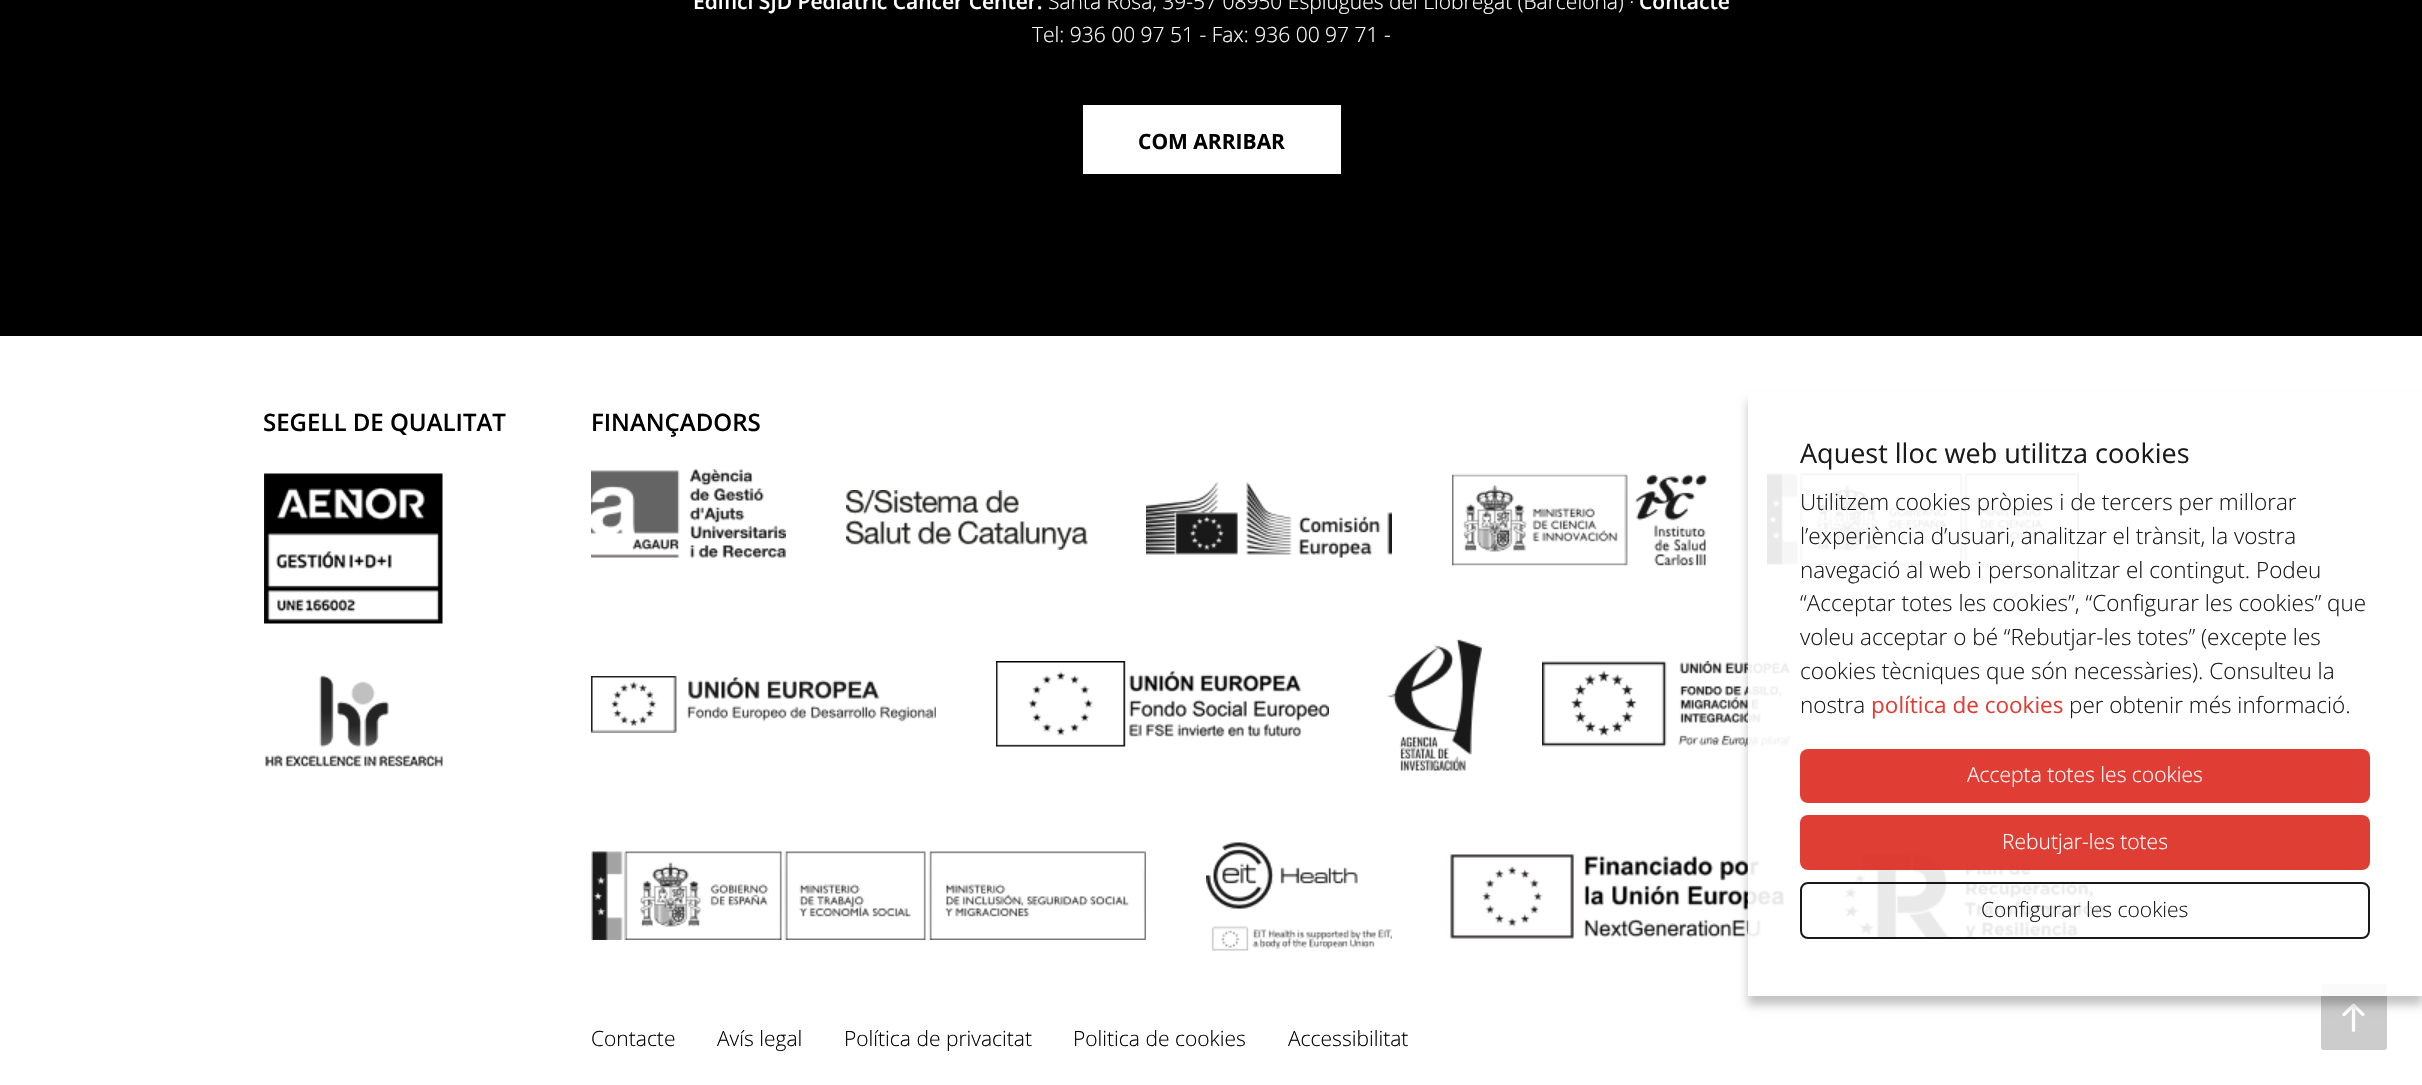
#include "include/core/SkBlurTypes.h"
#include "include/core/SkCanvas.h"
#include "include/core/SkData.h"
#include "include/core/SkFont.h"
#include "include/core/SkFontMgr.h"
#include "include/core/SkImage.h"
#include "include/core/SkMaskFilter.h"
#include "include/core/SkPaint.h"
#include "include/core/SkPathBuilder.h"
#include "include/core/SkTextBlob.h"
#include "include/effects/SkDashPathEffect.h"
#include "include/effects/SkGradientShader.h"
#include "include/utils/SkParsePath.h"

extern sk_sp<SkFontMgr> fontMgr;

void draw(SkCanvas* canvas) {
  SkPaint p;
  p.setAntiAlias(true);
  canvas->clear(SK_ColorWHITE);
  p.setColor(SK_ColorBLACK);
  canvas->drawRect(SkRect::MakeLTRB(0, 0, 2422, 336), p);
  p.setColor(SK_ColorWHITE);
  canvas->drawRect(SkRect::MakeLTRB(1083, 105, 1341, 174), p);
  canvas->drawImageRect(SkImages::DeferredFromEncodedData(SkData::MakeFromFileName("images/1.png")), SkRect::MakeLTRB(264, 473, 443, 624), SkSamplingOptions());
  canvas->drawImageRect(SkImages::DeferredFromEncodedData(SkData::MakeFromFileName("images/2.png")), SkRect::MakeLTRB(265, 675, 443, 767), SkSamplingOptions());
  canvas->drawImageRect(SkImages::DeferredFromEncodedData(SkData::MakeFromFileName("images/3.png")), SkRect::MakeLTRB(591, 469, 786, 558), SkSamplingOptions());
  canvas->drawImageRect(SkImages::DeferredFromEncodedData(SkData::MakeFromFileName("images/4.png")), SkRect::MakeLTRB(846, 490, 1088, 550), SkSamplingOptions());
  canvas->drawImageRect(SkImages::DeferredFromEncodedData(SkData::MakeFromFileName("images/5.png")), SkRect::MakeLTRB(1146, 482, 1392, 558), SkSamplingOptions());
  canvas->drawImageRect(SkImages::DeferredFromEncodedData(SkData::MakeFromFileName("images/6.png")), SkRect::MakeLTRB(1452, 473, 1707, 566), SkSamplingOptions());
  canvas->drawImageRect(SkImages::DeferredFromEncodedData(SkData::MakeFromFileName("images/7.png")), SkRect::MakeLTRB(1767, 473, 2079, 565), SkSamplingOptions());
  canvas->drawImageRect(SkImages::DeferredFromEncodedData(SkData::MakeFromFileName("images/8.png")), SkRect::MakeLTRB(591, 676, 936, 733), SkSamplingOptions());
  canvas->drawImageRect(SkImages::DeferredFromEncodedData(SkData::MakeFromFileName("images/9.png")), SkRect::MakeLTRB(996, 661, 1329, 747), SkSamplingOptions());
  canvas->drawImageRect(SkImages::DeferredFromEncodedData(SkData::MakeFromFileName("images/10.png")), SkRect::MakeLTRB(1387, 639, 1482, 771), SkSamplingOptions());
  canvas->drawImageRect(SkImages::DeferredFromEncodedData(SkData::MakeFromFileName("images/11.png")), SkRect::MakeLTRB(1542, 661, 1790, 747), SkSamplingOptions());
  canvas->drawImageRect(SkImages::DeferredFromEncodedData(SkData::MakeFromFileName("images/12.png")), SkRect::MakeLTRB(591, 851, 1146, 940), SkSamplingOptions());
  canvas->drawImageRect(SkImages::DeferredFromEncodedData(SkData::MakeFromFileName("images/13.png")), SkRect::MakeLTRB(1206, 842, 1392, 951), SkSamplingOptions());
  canvas->drawImageRect(SkImages::DeferredFromEncodedData(SkData::MakeFromFileName("images/14.png")), SkRect::MakeLTRB(1450, 854, 1784, 939), SkSamplingOptions());
  canvas->drawImageRect(SkImages::DeferredFromEncodedData(SkData::MakeFromFileName("images/15.png")), SkRect::MakeLTRB(1844, 853, 2105, 939), SkSamplingOptions());
  p.setColor(SkColorSetRGB(204, 204, 204));
  canvas->drawRoundRect(SkRect::MakeLTRB(2321, 984, 2387, 1050), 3, 3, p);
  canvas->drawImageRect(SkImages::DeferredFromEncodedData(SkData::MakeFromFileName("images/16.png")), SkRect::MakeLTRB(2342, 1003, 2365, 1032), SkSamplingOptions());
  canvas->save();
  canvas->clipPath(SkPathBuilder(SkPathFillType::kEvenOdd).moveTo(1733, 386).lineTo(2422, 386).lineTo(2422, 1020).lineTo(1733, 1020).close().moveTo(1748, 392).lineTo(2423, 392).lineTo(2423, 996).lineTo(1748, 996).close().detach(), true);
  p.setColor(SkColorSetARGB(59, 0, 0, 0));
  p.setMaskFilter(SkMaskFilter::MakeBlur(kNormal_SkBlurStyle, 4.5f));
  canvas->drawRect(SkRect::MakeLTRB(1748, 401, 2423, 1005), p);
  p.setMaskFilter(nullptr);
  canvas->restore();
  p.setColor(SkColorSetARGB(230, 255, 255, 255));
  canvas->drawRect(SkRect::MakeLTRB(1748, 473, 2387, 996), p);
  p.setColor(SkColorSetRGB(224, 62, 53));
  canvas->drawRoundRect(SkRect::MakeLTRB(1800, 749, 2370, 803), 8, 8, p);
  p.setColor(SkColorSetARGB(230, 220, 41, 30));
  canvas->drawRoundRect(SkRect::MakeLTRB(1800, 815, 2370, 870), 8, 8, p);
  p.setStyle(SkPaint::kStroke_Style);
  p.setStrokeWidth(2);
  p.setColor(SkColorSetARGB(230, 0, 0, 0));
  canvas->drawRoundRect(SkRect::MakeLTRB(1801, 883, 2369, 938), 7, 7, p);
  SkFont font1(fontMgr->matchFamilyStyle("Open Sans", SkFontStyle(600, SkFontStyle::kNormal_Width, SkFontStyle::kUpright_Slant)), 21);
  font1.setSubpixel(true);
  p.setStyle(SkPaint::kFill_Style);
  p.setColor(SK_ColorWHITE);
  canvas->drawString("Edifici SJD Pediatric Cancer Center.", 693, 9, font1, p);
  SkFont font2(fontMgr->matchFamilyStyle("Open Sans", SkFontStyle(300, SkFontStyle::kNormal_Width, SkFontStyle::kUpright_Slant)), 21);
  font2.setSubpixel(true);
  canvas->drawString("Santa Rosa, 39-57 08950 Esplugues del Llobregat (Barcelona) ·", 1048, 9, font2, p);
  canvas->drawString("Contacte", 1639, 9, font1, p);
  canvas->drawString("Tel: 936 00 97 51 - Fax: 936 00 97 71 -", 1032, 42, font2, p);
  SkFont font3(fontMgr->matchFamilyStyle("Open Sans", SkFontStyle::Bold()), 21);
  font3.setSubpixel(true);
  p.setColor(SK_ColorBLACK);
  canvas->drawString("COM ARRIBAR", 1138, 149, font3, p);
  SkFont font4(fontMgr->matchFamilyStyle("Open Sans", SkFontStyle(600, SkFontStyle::kNormal_Width, SkFontStyle::kUpright_Slant)), 24);
  font4.setSubpixel(true);
  canvas->drawString("SEGELL DE QUALITAT", 263, 431, font4, p);
  canvas->drawString("FINANÇADORS", 591, 431, font4, p);
  canvas->drawString("Contacte", 591, 1046, font2, p);
  canvas->drawString("Avís legal", 717, 1046, font2, p);
  canvas->drawString("Política de privacitat", 844, 1046, font2, p);
  canvas->drawString("Politica de cookies", 1073, 1046, font2, p);
  canvas->drawString("Accessibilitat", 1288, 1046, font2, p);
  SkFont font5(fontMgr->matchFamilyStyle("Open Sans", SkFontStyle::Normal()), 27);
  font5.setSubpixel(true);
  p.setColor(SkColorSetRGB(26, 26, 26));
  canvas->drawString("Aquest lloc web utilitza cookies", 1800, 463, font5, p);
  SkFont font6(fontMgr->matchFamilyStyle("Open Sans", SkFontStyle(300, SkFontStyle::kNormal_Width, SkFontStyle::kUpright_Slant)), 22.5f);
  font6.setSubpixel(true);
  canvas->drawString("Utilitzem cookies pròpies i de tercers per millorar", 1800, 510, font6, p);
  canvas->drawString("l’experiència d’usuari, analitzar el trànsit, la vostra", 1800, 544, font6, p);
  canvas->drawString("navegació al web i personalitzar el contingut. Podeu", 1800, 578, font6, p);
  canvas->drawString("“Acceptar totes les cookies”, “Configurar les cookies” que", 1800, 611, font6, p);
  canvas->drawString("voleu acceptar o bé “Rebutjar-les totes” (excepte les", 1800, 645, font6, p);
  canvas->drawString("cookies tècniques que són necessàries). Consulteu la", 1800, 679, font6, p);
  canvas->drawString("nostra", 1800, 713, font6, p);
  SkFont font7(fontMgr->matchFamilyStyle("Open Sans", SkFontStyle::Normal()), 22.5f);
  font7.setSubpixel(true);
  p.setColor(SkColorSetRGB(224, 62, 53));
  canvas->drawString("política de cookies", 1871, 713, font7, p);
  p.setColor(SkColorSetRGB(26, 26, 26));
  canvas->drawString("per obtenir més informació.", 2069, 713, font6, p);
  p.setColor(SK_ColorWHITE);
  canvas->drawString("Accepta totes les cookies", 1967, 782, font2, p);
  canvas->drawString("Rebutjar-les totes", 2002, 849, font2, p);
  p.setColor(SkColorSetRGB(26, 26, 26));
  canvas->drawString("Configurar les cookies", 1981, 917, font2, p);
}
